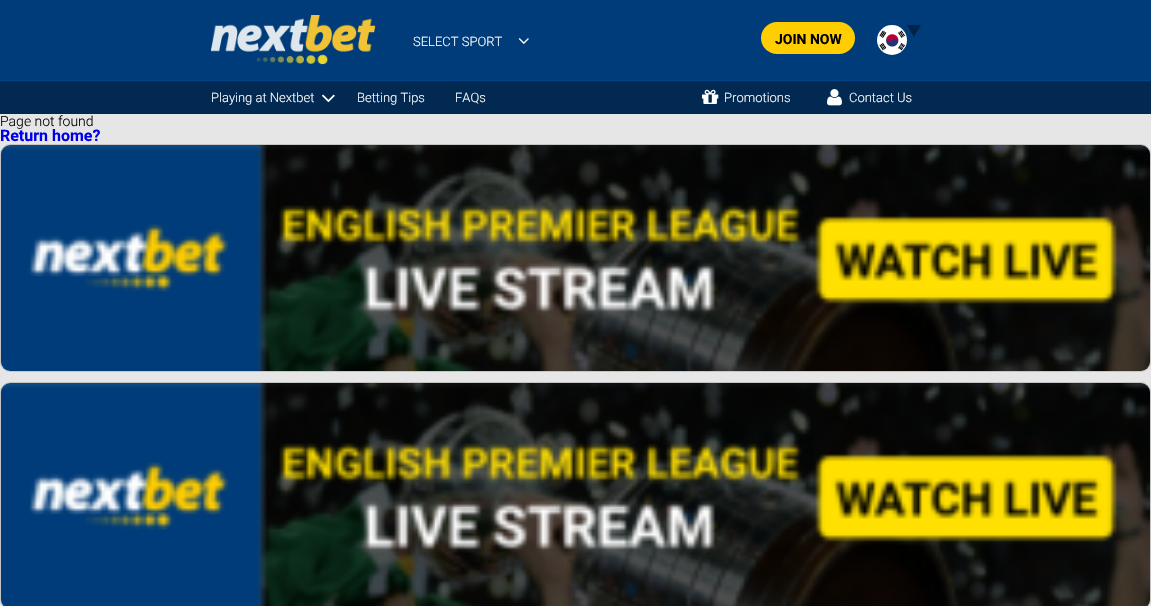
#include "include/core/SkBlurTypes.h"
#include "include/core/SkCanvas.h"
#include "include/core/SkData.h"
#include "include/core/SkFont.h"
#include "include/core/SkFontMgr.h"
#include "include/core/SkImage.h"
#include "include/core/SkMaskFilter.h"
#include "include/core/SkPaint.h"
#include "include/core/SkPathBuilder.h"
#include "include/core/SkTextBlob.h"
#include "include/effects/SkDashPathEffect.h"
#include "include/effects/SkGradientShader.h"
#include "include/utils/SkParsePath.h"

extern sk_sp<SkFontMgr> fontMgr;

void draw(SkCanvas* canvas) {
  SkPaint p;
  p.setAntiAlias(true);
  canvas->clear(SkColorSetRGB(230, 230, 230));
  p.setColor(SkColorSetRGB(0, 60, 121));
  canvas->drawRect(SkRect::MakeLTRB(0, 0, 1151, 80), p);
  canvas->drawImageRect(SkImages::DeferredFromEncodedData(SkData::MakeFromFileName("images/1.png")), SkRect::MakeLTRB(211, 15, 376, 65), SkSamplingOptions());
  canvas->drawImageRect(SkImages::DeferredFromEncodedData(SkData::MakeFromFileName("images/2.png")), SkRect::MakeLTRB(518, 38, 529, 44), SkSamplingOptions());
  p.setColor(SkColorSetRGB(255, 205, 0));
  canvas->drawRoundRect(SkRect::MakeLTRB(761, 22, 855, 54), 16, 16, p);
  canvas->drawImageRect(SkImages::DeferredFromEncodedData(SkData::MakeFromFileName("images/3.png")), SkRect::MakeLTRB(877, 25, 907, 55), SkSamplingOptions());
  p.setColor(SkColorSetRGB(0, 36, 72));
  canvas->drawPath(SkPathBuilder().moveTo(907, 25).lineTo(921, 25).lineTo(914, 37).close().detach(), p);
  p.setColor(SkColorSetRGB(1, 41, 81));
  canvas->drawRect(SkRect::MakeLTRB(0, 81, 1151, 114), p);
  p.setColor(SkColorSetRGB(0, 68, 137));
  canvas->drawRect(SkRect::MakeLTRB(0, 80, 1151, 81), p);
  canvas->drawImageRect(SkImages::DeferredFromEncodedData(SkData::MakeFromFileName("images/4.png")), SkRect::MakeLTRB(322, 94, 335, 103), SkSamplingOptions());
  canvas->drawImageRect(SkImages::DeferredFromEncodedData(SkData::MakeFromFileName("images/5.png")), SkRect::MakeLTRB(702, 89, 719, 104), SkSamplingOptions());
  canvas->drawImageRect(SkImages::DeferredFromEncodedData(SkData::MakeFromFileName("images/6.png")), SkRect::MakeLTRB(827, 89, 842, 106), SkSamplingOptions());
  p.setColor(SK_ColorWHITE);
  canvas->drawRoundRect(SkRect::MakeLTRB(0.5f, 144.5f, 1150.5f, 371.5f), 9.5f, 9.5f, p);
  p.setStyle(SkPaint::kStroke_Style);
  p.setStrokeWidth(1);
  p.setColor(SkColorSetRGB(197, 197, 197));
  canvas->drawRoundRect(SkRect::MakeLTRB(0.5f, 144.5f, 1150.5f, 371.5f), 9.5f, 9.5f, p);
  canvas->drawImageRect(SkImages::DeferredFromEncodedData(SkData::MakeFromFileName("images/7.png")), SkRect::MakeLTRB(1, 145, 1150, 371), SkSamplingOptions());
  p.setStyle(SkPaint::kFill_Style);
  p.setColor(SK_ColorWHITE);
  canvas->drawRoundRect(SkRect::MakeLTRB(0.5f, 382.5f, 1150.5f, 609.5f), 9.5f, 9.5f, p);
  p.setStyle(SkPaint::kStroke_Style);
  p.setColor(SkColorSetRGB(197, 197, 197));
  canvas->drawRoundRect(SkRect::MakeLTRB(0.5f, 382.5f, 1150.5f, 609.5f), 9.5f, 9.5f, p);
  canvas->drawImageRect(SkImages::DeferredFromEncodedData(SkData::MakeFromFileName("images/8.png")), SkRect::MakeLTRB(1, 383, 1150, 606), SkSamplingOptions());
  SkFont font1(fontMgr->matchFamilyStyle("Roboto", SkFontStyle(300, SkFontStyle::kNormal_Width, SkFontStyle::kUpright_Slant)), 13);
  font1.setSubpixel(true);
  p.setStyle(SkPaint::kFill_Style);
  p.setColor(SK_ColorWHITE);
  canvas->drawString("SELECT SPORT", 413, 46, font1, p);
  SkFont font2(fontMgr->matchFamilyStyle("Roboto", SkFontStyle::Bold()), 14);
  font2.setSubpixel(true);
  p.setColor(SK_ColorBLACK);
  canvas->drawString("JOIN NOW", 775, 44, font2, p);
  p.setColor(SK_ColorWHITE);
  canvas->drawString("Playing at Nextbet", 211, 102, font1, p);
  canvas->drawString("Betting Tips", 357, 102, font1, p);
  canvas->drawString("FAQs", 455, 102, font1, p);
  canvas->drawString("Promotions", 724, 102, font1, p);
  canvas->drawString("Contact Us", 849, 102, font1, p);
  SkFont font3(fontMgr->matchFamilyStyle("Roboto", SkFontStyle(300, SkFontStyle::kNormal_Width, SkFontStyle::kUpright_Slant)), 14);
  font3.setSubpixel(true);
  p.setColor(SK_ColorBLACK);
  canvas->drawString("Page not found", 0, 126, font3, p);
  SkFont font4(fontMgr->matchFamilyStyle("Roboto", SkFontStyle::Bold()), 16);
  font4.setSubpixel(true);
  p.setColor(SkColorSetRGB(0, 0, 238));
  canvas->drawString("Return home?", 0, 141, font4, p);
}
